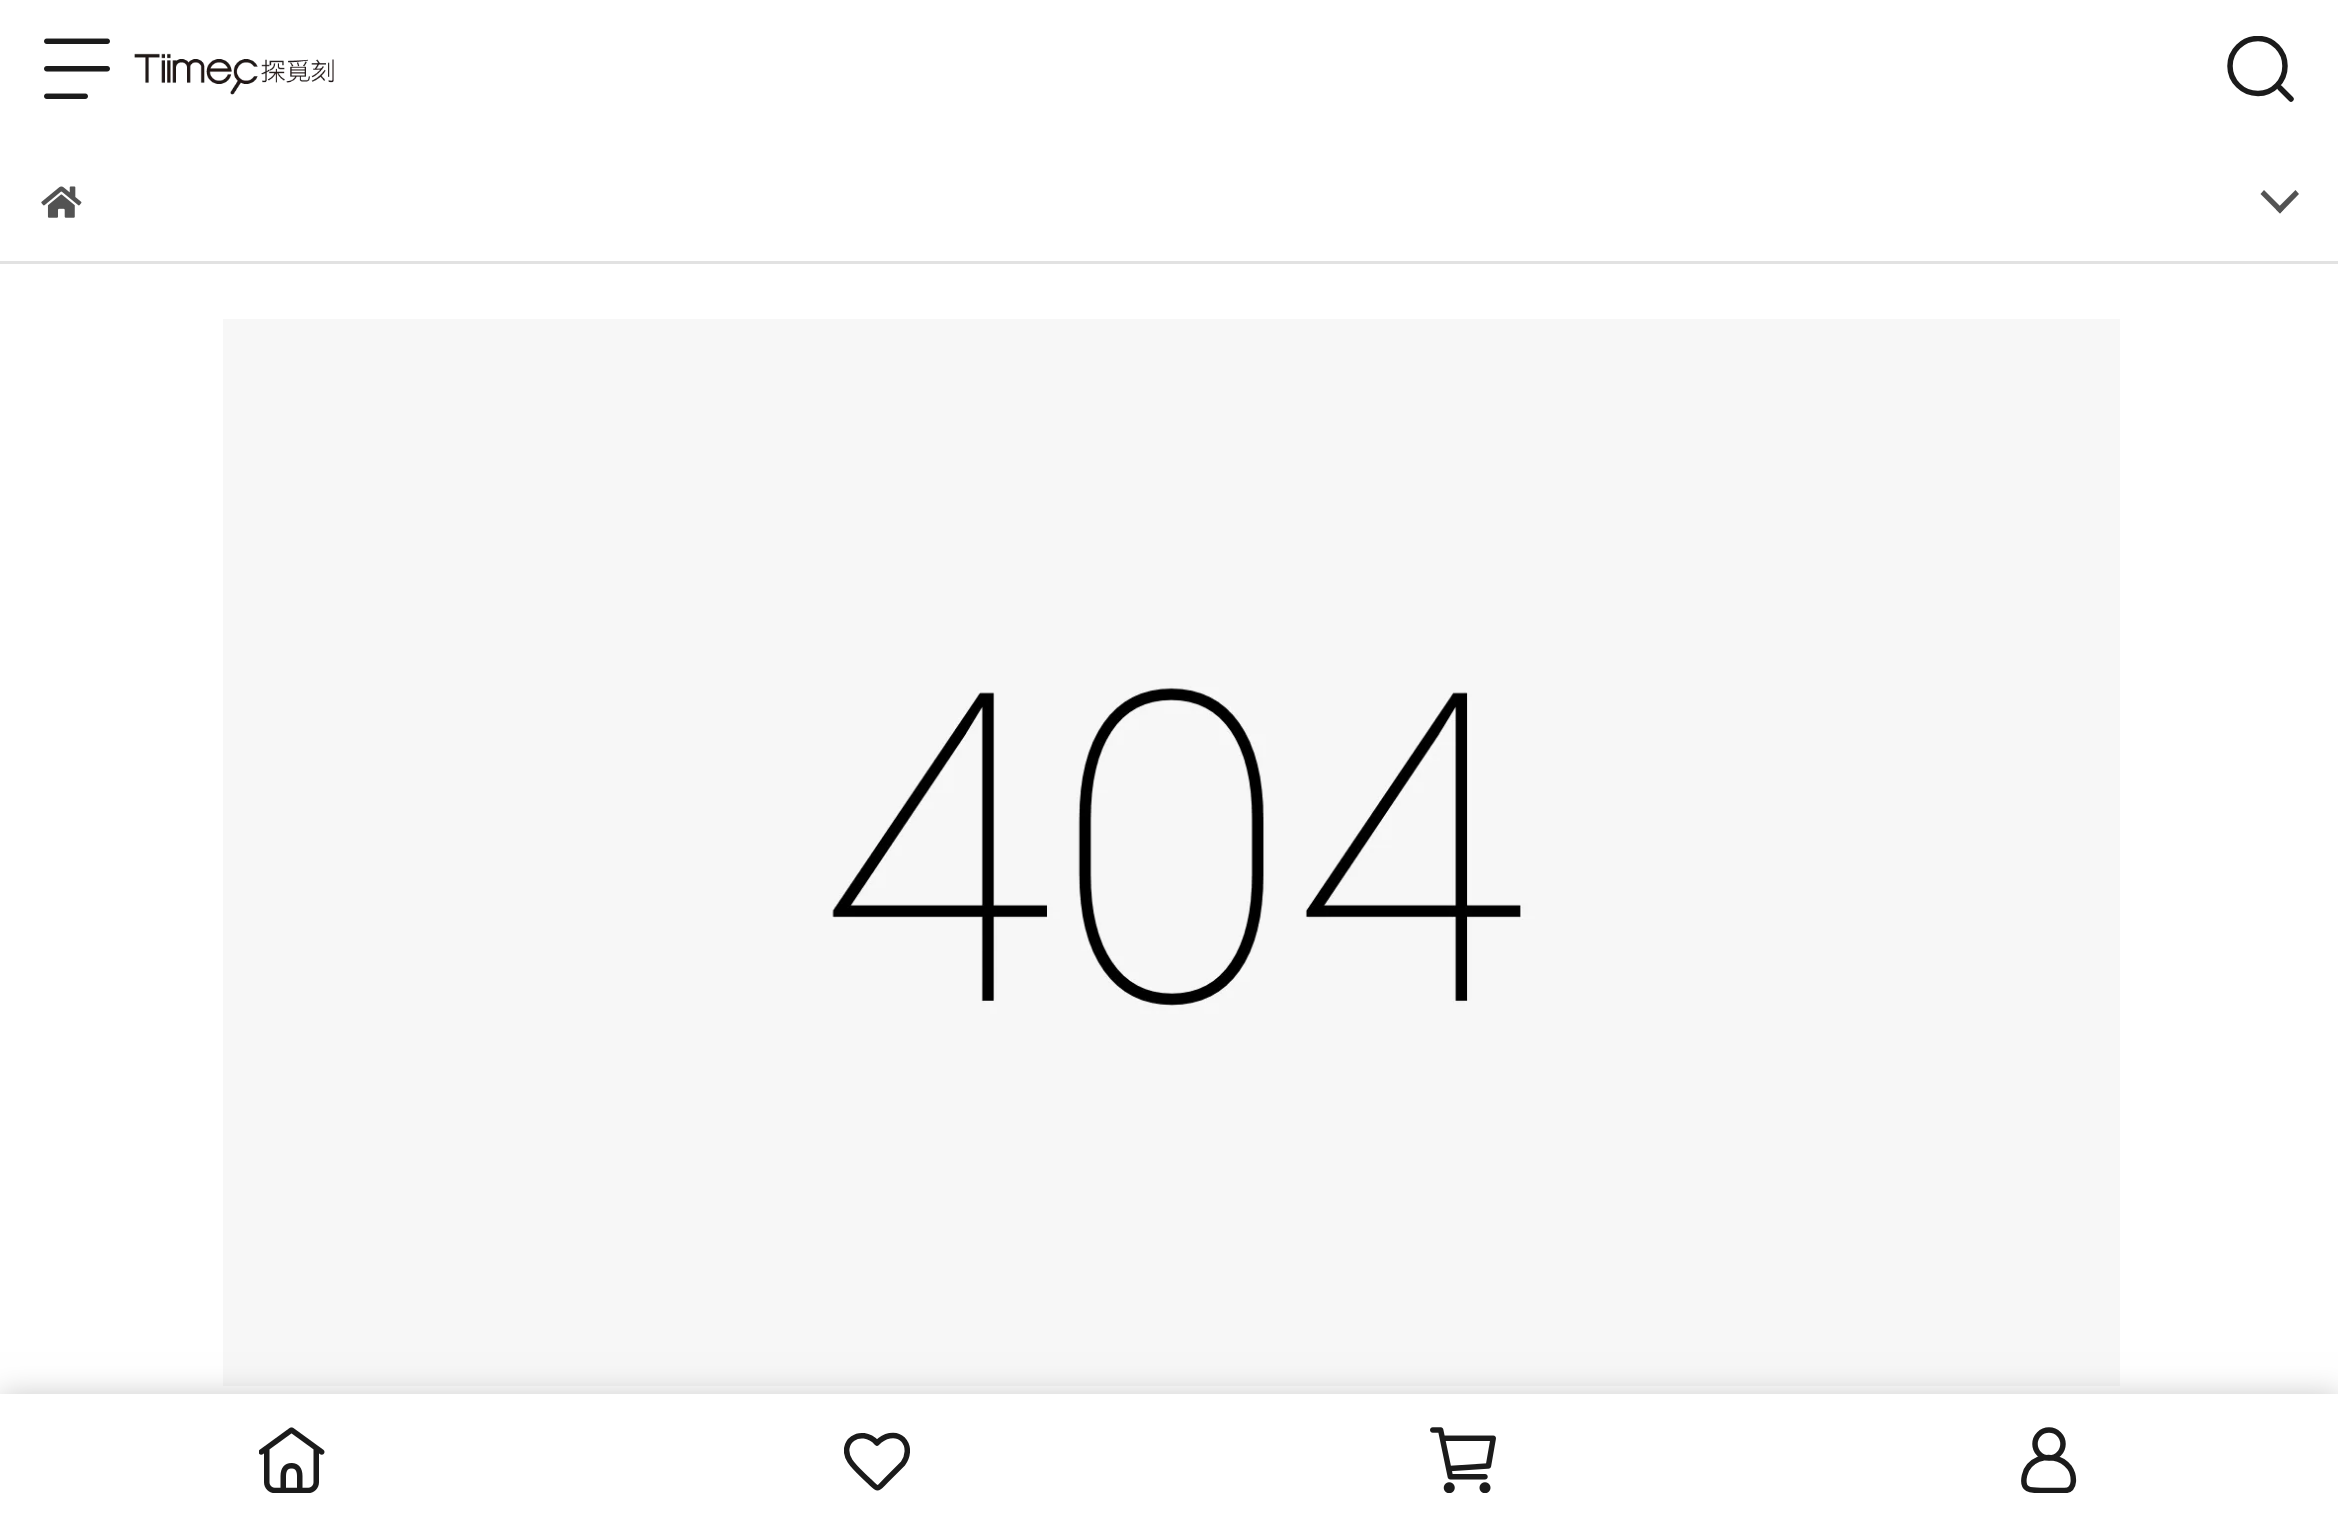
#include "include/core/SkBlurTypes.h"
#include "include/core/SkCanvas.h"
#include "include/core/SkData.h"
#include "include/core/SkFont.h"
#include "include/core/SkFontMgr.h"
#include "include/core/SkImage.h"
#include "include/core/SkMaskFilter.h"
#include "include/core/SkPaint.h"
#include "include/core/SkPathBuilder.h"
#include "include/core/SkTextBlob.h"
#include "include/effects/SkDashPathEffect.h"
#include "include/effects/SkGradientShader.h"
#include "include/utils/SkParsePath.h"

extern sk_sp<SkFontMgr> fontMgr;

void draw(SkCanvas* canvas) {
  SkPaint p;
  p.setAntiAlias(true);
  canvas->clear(SK_ColorWHITE);
  canvas->drawImageRect(SkImages::DeferredFromEncodedData(SkData::MakeFromFileName("images/1.png")), SkRect::MakeLTRB(44, 38, 110, 99), SkSamplingOptions());
  canvas->drawImageRect(SkImages::DeferredFromEncodedData(SkData::MakeFromFileName("images/2.png")), SkRect::MakeLTRB(134, 53, 334, 95), SkSamplingOptions());
  canvas->save();
  canvas->clipRect(SkRect::MakeLTRB(2225, 36, 2296, 102));
  p.setStyle(SkPaint::kStroke_Style);
  p.setStrokeWidth(5.5f);
  p.setStrokeCap(SkPaint::kRound_Cap);
  p.setStrokeJoin(SkPaint::kRound_Join);
  p.setColor(SkColorSetRGB(27, 27, 27));
  canvas->drawPath(SkPathBuilder().moveTo(2285, 66).cubicTo(2285, 81, 2273, 93.5f, 2258, 93.5f).cubicTo(2242.5f, 93.5f, 2230, 81, 2230, 66).cubicTo(2230, 51, 2242.5f, 38.5f, 2258, 38.5f).cubicTo(2273, 38.5f, 2285, 51, 2285, 66).close().detach(), p);
  canvas->restore();
  canvas->drawPath(SkPathBuilder().moveTo(2280, 88).lineTo(2291, 99).detach(), p);
  canvas->drawImageRect(SkImages::DeferredFromEncodedData(SkData::MakeFromFileName("images/6.png")), SkRect::MakeLTRB(223, 319, 2120, 1386), SkSamplingOptions());
  p.setStyle(SkPaint::kFill_Style);
  p.setColor(SkColorSetARGB(51, 0, 0, 0));
  p.setMaskFilter(SkMaskFilter::MakeBlur(kNormal_SkBlurStyle, 14));
  canvas->drawRect(SkRect::MakeLTRB(0, 1394, 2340, 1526), p);
  p.setMaskFilter(nullptr);
  p.setColor(SK_ColorWHITE);
  canvas->drawRect(SkRect::MakeLTRB(0, 1394, 2338, 1524), p);
  canvas->drawImageRect(SkImages::DeferredFromEncodedData(SkData::MakeFromFileName("images/3.png")), SkRect::MakeLTRB(259, 1427, 325, 1493), SkSamplingOptions());
  canvas->save();
  canvas->clipRect(SkRect::MakeLTRB(844, 1427, 910, 1493));
  p.setStyle(SkPaint::kStroke_Style);
  p.setColor(SkColorSetRGB(27, 27, 27));
  canvas->drawPath(SkPathBuilder().moveTo(903, 1439.5f).cubicTo(895, 1432, 884, 1436, 877, 1443).cubicTo(860.5f, 1425.5f, 838, 1442.5f, 850, 1461).cubicTo(855, 1468.5f, 862.5f, 1474.5f, 868.5f, 1480.5f).cubicTo(880, 1491.5f, 876, 1490, 889.5f, 1477).lineTo(903, 1463.5f).cubicTo(908, 1456.5f, 909.5f, 1446.5f, 903, 1439.5f).close().detach(), p);
  canvas->restore();
  canvas->drawImageRect(SkImages::DeferredFromEncodedData(SkData::MakeFromFileName("images/4.png")), SkRect::MakeLTRB(1430, 1427, 1496, 1493), SkSamplingOptions());
  p.setStrokeCap(SkPaint::kButt_Cap);
  p.setStrokeJoin(SkPaint::kMiter_Join);
  canvas->drawCircle(2049, 1444, 14, p);
  canvas->save();
  canvas->clipRect(SkRect::MakeLTRB(2016, 1427, 2082, 1493));
  canvas->drawPath(SkPathBuilder().moveTo(2064, 1490.5f).lineTo(2043.5f, 1490.5f).cubicTo(2031.5f, 1490.5f, 2021, 1491.5f, 2024.5f, 1475.5f).cubicTo(2026, 1468, 2032, 1462, 2039, 1459).cubicTo(2044, 1457.5f, 2049, 1457, 2053.5f, 1458).cubicTo(2060, 1459, 2065.5f, 1462.5f, 2069.5f, 1467.5f).cubicTo(2074, 1474, 2077, 1491, 2064, 1490.5f).close().detach(), p);
  canvas->restore();
  p.setStyle(SkPaint::kFill_Style);
  p.setColor(SkColorSetRGB(226, 226, 226));
  canvas->drawRect(SkRect::MakeLTRB(0, 261, 2338, 264), p);
  canvas->drawImageRect(SkImages::DeferredFromEncodedData(SkData::MakeFromFileName("images/5.png")), SkRect::MakeLTRB(41, 186, 82, 218), SkSamplingOptions());
  p.setColor(SkColorSetRGB(83, 83, 83));
  canvas->drawPath(SkPathBuilder().moveTo(2276, 209.5f).lineTo(2295.5f, 190).lineTo(2299, 194).lineTo(2280, 213.5f).close().detach(), p);
  canvas->drawPath(SkPathBuilder().moveTo(2260.5f, 194).lineTo(2264, 190).lineTo(2283.5f, 209.5f).lineTo(2280, 213.5f).close().detach(), p);
}
